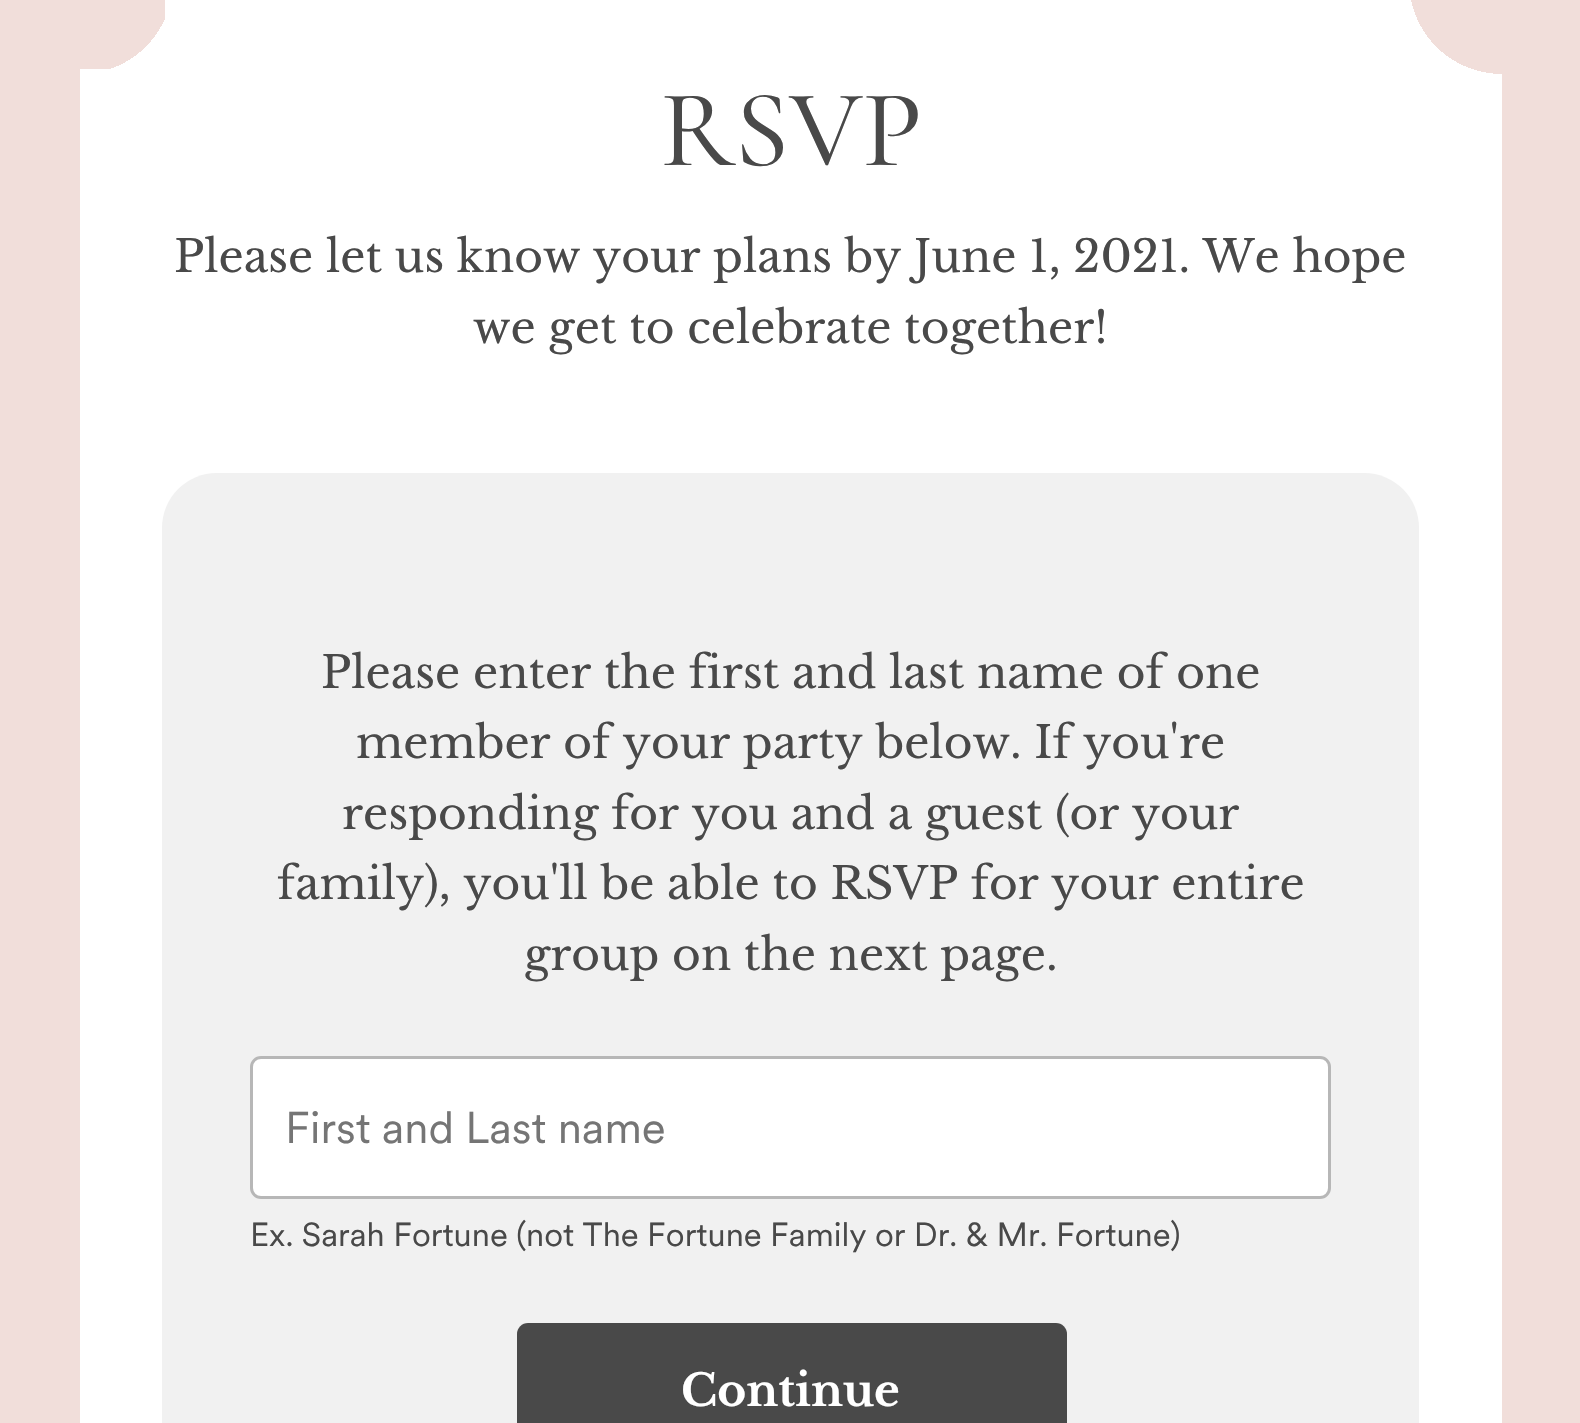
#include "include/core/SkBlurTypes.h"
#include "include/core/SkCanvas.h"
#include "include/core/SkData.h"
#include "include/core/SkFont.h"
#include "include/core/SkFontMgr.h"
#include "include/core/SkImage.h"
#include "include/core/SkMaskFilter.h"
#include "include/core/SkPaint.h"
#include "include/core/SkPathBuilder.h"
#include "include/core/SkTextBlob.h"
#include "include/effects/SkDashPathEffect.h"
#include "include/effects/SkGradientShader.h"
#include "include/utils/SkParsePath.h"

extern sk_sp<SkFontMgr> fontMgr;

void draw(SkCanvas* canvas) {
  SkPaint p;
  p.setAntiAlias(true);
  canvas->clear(SkColorSetRGB(241, 222, 218));
  {
    const SkColor colors[] = {SkColorSetRGB(241, 222, 218), SkColorSetRGB(73, 73, 73), SK_ColorWHITE};
    const float stops[] = {0.03f, 0.03f, 0.03f};
    p.setShader(SkGradientShader::MakeRadial({1502, -19}, 3098, colors, stops, 3, SkTileMode::kClamp));
    p.setAlpha(255);
  }
  canvas->drawRect(SkRect::MakeLTRB(80, 0, 1502, 1423), p);
  {
    const SkColor colors[] = {SkColorSetRGB(241, 222, 218), SkColorSetRGB(73, 73, 73), SkColorSetARGB(0, 73, 73, 73)};
    const float stops[] = {0.03f, 0.03f, 0.03f};
    p.setShader(SkGradientShader::MakeRadial({80, -19}, 3098, colors, stops, 3, SkTileMode::kClamp));
    p.setAlpha(255);
  }
  canvas->drawRect(SkRect::MakeLTRB(80, 0, 165, 69), p);
  p.setShader(nullptr);
  p.setColor(SkColorSetRGB(241, 241, 241));
  canvas->drawRoundRect(SkRect::MakeLTRB(162, 473, 1419, 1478), 55, 55, p);
  p.setColor(SK_ColorWHITE);
  canvas->drawRoundRect(SkRect::MakeLTRB(251.5f, 1057.5f, 1329.5f, 1197.5f), 9.5f, 9.5f, p);
  p.setStyle(SkPaint::kStroke_Style);
  p.setStrokeWidth(3);
  p.setColor(SkColorSetRGB(183, 183, 183));
  canvas->drawRoundRect(SkRect::MakeLTRB(251.5f, 1057.5f, 1329.5f, 1197.5f), 9.5f, 9.5f, p);
  p.setStyle(SkPaint::kFill_Style);
  p.setColor(SkColorSetRGB(73, 73, 73));
  canvas->drawRoundRect(SkRect::MakeLTRB(517, 1323, 1067, 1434), 11, 11, p);
  SkFont font1(fontMgr->matchFamilyStyle("Cormorant Garamond", SkFontStyle(500, SkFontStyle::kNormal_Width, SkFontStyle::kUpright_Slant)), 110);
  font1.setSubpixel(true);
  canvas->drawString("RSVP", 660, 165, font1, p);
  SkFont font2(fontMgr->matchFamilyStyle("Libre Baskerville", SkFontStyle::Normal()), 44);
  font2.setSubpixel(true);
  canvas->drawString("Please let us know your plans by June 1, 2021. We hope", 174, 272, font2, p);
  canvas->drawString("we get to celebrate together!", 473, 343, font2, p);
  canvas->drawString("Please enter the first and last name of one", 321, 688, font2, p);
  canvas->drawString("member of your party below. If you're", 356, 758, font2, p);
  canvas->drawString("responding for you and a guest (or your", 342, 829, font2, p);
  canvas->drawString("family), you'll be able to RSVP for your entire", 277, 899, font2, p);
  canvas->drawString("group on the next page.", 524, 970, font2, p);
  SkFont font3(fontMgr->matchFamilyStyle("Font", SkFontStyle::Normal()), 44);
  font3.setSubpixel(true);
  p.setColor(SkColorSetRGB(117, 117, 117));
  canvas->drawString("First and Last name", 285, 1143, font3, p);
  SkFont font4(fontMgr->matchFamilyStyle("Font", SkFontStyle::Normal()), 33);
  font4.setSubpixel(true);
  p.setColor(SkColorSetRGB(73, 73, 73));
  canvas->drawString("Ex. Sarah Fortune (not The Fortune Family or Dr. & Mr. Fortune)", 250, 1246, font4, p);
  SkFont font5(fontMgr->matchFamilyStyle("Libre Baskerville", SkFontStyle::Bold()), 44);
  font5.setSubpixel(true);
  p.setColor(SK_ColorWHITE);
  canvas->drawString("Continue", 681, 1406, font5, p);
}
